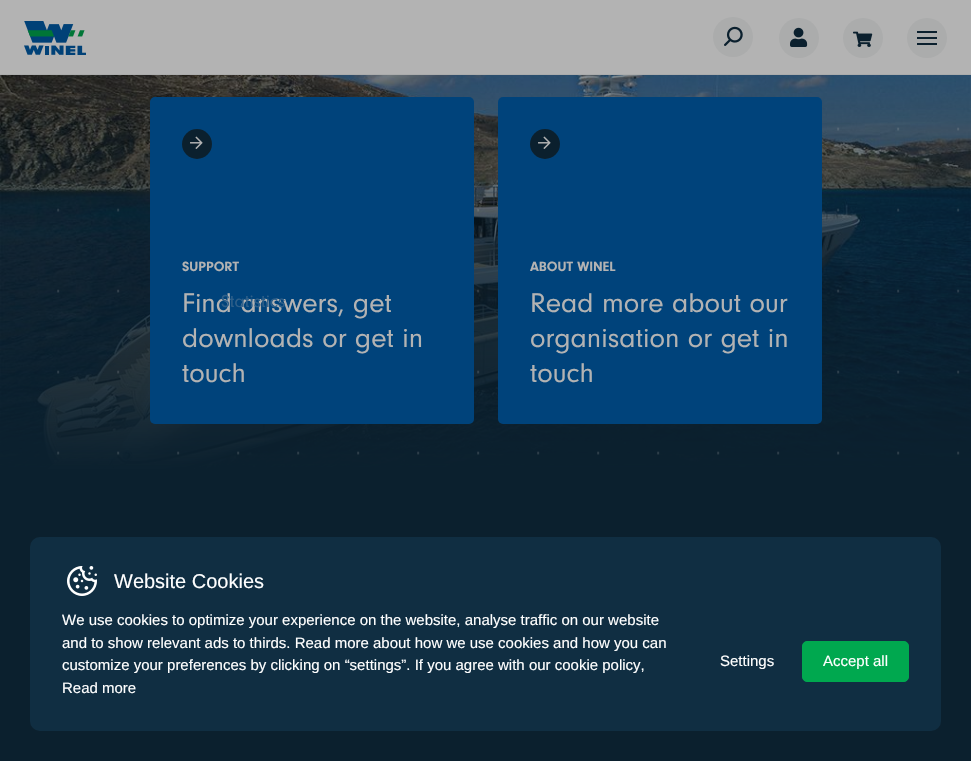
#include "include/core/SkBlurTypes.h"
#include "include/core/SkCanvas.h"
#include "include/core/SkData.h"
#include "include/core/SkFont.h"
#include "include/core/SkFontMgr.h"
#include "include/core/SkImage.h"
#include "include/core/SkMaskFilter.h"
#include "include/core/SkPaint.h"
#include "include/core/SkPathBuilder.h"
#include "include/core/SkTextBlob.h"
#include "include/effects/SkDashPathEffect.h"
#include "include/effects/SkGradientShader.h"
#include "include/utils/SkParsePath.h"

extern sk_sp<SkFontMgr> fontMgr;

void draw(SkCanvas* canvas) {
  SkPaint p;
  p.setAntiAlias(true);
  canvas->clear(SkColorSetRGB(11, 32, 46));
  p.setColor(SkColorSetRGB(179, 179, 179));
  canvas->drawRect(SkRect::MakeLTRB(0, 0, 971, 74), p);
  p.setColor(SkColorSetRGB(171, 172, 172));
  canvas->drawRect(SkRect::MakeLTRB(0, 74, 971, 75), p);
  canvas->drawImageRect(SkImages::DeferredFromEncodedData(SkData::MakeFromFileName("images/1.png")), SkRect::MakeLTRB(24, 21, 86, 55), SkSamplingOptions());
  canvas->drawCircle(733, 37, 20, p);
  canvas->drawImageRect(SkImages::DeferredFromEncodedData(SkData::MakeFromFileName("images/2.png")), SkRect::MakeLTRB(724, 26, 743, 46), SkSamplingOptions());
  canvas->drawCircle(799, 38, 20, p);
  canvas->drawImageRect(SkImages::DeferredFromEncodedData(SkData::MakeFromFileName("images/3.png")), SkRect::MakeLTRB(790, 27, 808, 47), SkSamplingOptions());
  canvas->drawCircle(863, 38, 20, p);
  canvas->drawImageRect(SkImages::DeferredFromEncodedData(SkData::MakeFromFileName("images/4.png")), SkRect::MakeLTRB(853, 31, 873, 47), SkSamplingOptions());
  canvas->drawCircle(927, 38, 20, p);
  p.setColor(SkColorSetRGB(11, 32, 46));
  canvas->drawRect(SkRect::MakeLTRB(917, 31, 937, 33), p);
  canvas->drawRect(SkRect::MakeLTRB(917, 37, 937, 39), p);
  canvas->drawRect(SkRect::MakeLTRB(917, 43, 937, 45), p);
  canvas->drawImageRect(SkImages::DeferredFromEncodedData(SkData::MakeFromFileName("images/5.png")), SkRect::MakeLTRB(0, 75, 971, 470), SkSamplingOptions());
  canvas->drawImageRect(SkImages::DeferredFromEncodedData(SkData::MakeFromFileName("images/6.png")), SkRect::MakeLTRB(57, 127, 960, 455), SkSamplingOptions());
  p.setColor(SkColorSetRGB(0, 67, 123));
  canvas->drawRoundRect(SkRect::MakeLTRB(150, 97, 474, 424), 5, 5, p);
  p.setColor(SkColorSetRGB(11, 32, 46));
  canvas->drawCircle(197, 144, 15, p);
  canvas->drawImageRect(SkImages::DeferredFromEncodedData(SkData::MakeFromFileName("images/7.png")), SkRect::MakeLTRB(190, 136, 203, 149), SkSamplingOptions());
  p.setColor(SkColorSetRGB(0, 67, 123));
  canvas->drawRoundRect(SkRect::MakeLTRB(498, 97, 822, 424), 5, 5, p);
  p.setColor(SkColorSetRGB(11, 32, 46));
  canvas->drawCircle(545, 144, 15, p);
  canvas->drawImageRect(SkImages::DeferredFromEncodedData(SkData::MakeFromFileName("images/7.png")), SkRect::MakeLTRB(538, 136, 551, 149), SkSamplingOptions());
  p.setColor(SkColorSetRGB(16, 46, 66));
  canvas->drawRoundRect(SkRect::MakeLTRB(30, 537, 941, 731), 10, 10, p);
  canvas->drawImageRect(SkImages::DeferredFromEncodedData(SkData::MakeFromFileName("images/8.png")), SkRect::MakeLTRB(67, 566, 97, 596), SkSamplingOptions());
  p.setColor(SkColorSetRGB(0, 168, 79));
  canvas->drawRoundRect(SkRect::MakeLTRB(802.5f, 641.5f, 908.5f, 681.5f), 4.5f, 4.5f, p);
  p.setStyle(SkPaint::kStroke_Style);
  p.setStrokeWidth(1);
  canvas->drawRoundRect(SkRect::MakeLTRB(802.5f, 641.5f, 908.5f, 681.5f), 4.5f, 4.5f, p);
  SkFont font1(fontMgr->matchFamilyStyle("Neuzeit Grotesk", SkFontStyle::Bold()), 14);
  font1.setSubpixel(true);
  p.setStyle(SkPaint::kFill_Style);
  p.setColor(SkColorSetRGB(179, 179, 179));
  canvas->drawString("SUPPORT", 182, 271, font1, p);
  SkFont font2(fontMgr->matchFamilyStyle("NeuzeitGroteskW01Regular", SkFontStyle::Normal()), 28.25f);
  font2.setSubpixel(true);
  canvas->drawString("Find answers, get", 182, 312, font2, p);
  canvas->drawString("downloads or get in", 182, 347, font2, p);
  canvas->drawString("touch", 182, 382, font2, p);
  canvas->drawString("ABOUT WINEL", 530, 271, font1, p);
  canvas->drawString("Read more about our", 530, 312, font2, p);
  canvas->drawString("organisation or get in", 530, 347, font2, p);
  canvas->drawString("touch", 530, 382, font2, p);
  SkFont font3(fontMgr->matchFamilyStyle("NeuzeitGroteskW01Regular", SkFontStyle::Normal()), 18);
  font3.setSubpixel(true);
  p.setColor(SkColorSetRGB(46, 95, 137));
  canvas->drawString("Statistics", 221, 307, font3, p);
  SkFont font4(fontMgr->matchFamilyStyle("Liberation Sans", SkFontStyle::Normal()), 20);
  font4.setSubpixel(true);
  p.setColor(SK_ColorWHITE);
  canvas->drawString("Website Cookies", 114, 588, font4, p);
  SkFont font5(fontMgr->matchFamilyStyle("Liberation Sans", SkFontStyle::Normal()), 15);
  font5.setSubpixel(true);
  canvas->drawString("We use cookies to optimize your experience on the website, analyse traffic on our website", 62, 625, font5, p);
  canvas->drawString("and to show relevant ads to thirds. Read more about how we use cookies and how you can", 62, 648, font5, p);
  canvas->drawString("customize your preferences by clicking on “settings”. If you agree with our cookie policy,", 62, 670, font5, p);
  canvas->drawString("Read more", 62, 693, font5, p);
  canvas->drawString("Settings", 720, 666, font5, p);
  canvas->drawString("Accept all", 823, 666, font5, p);
}
